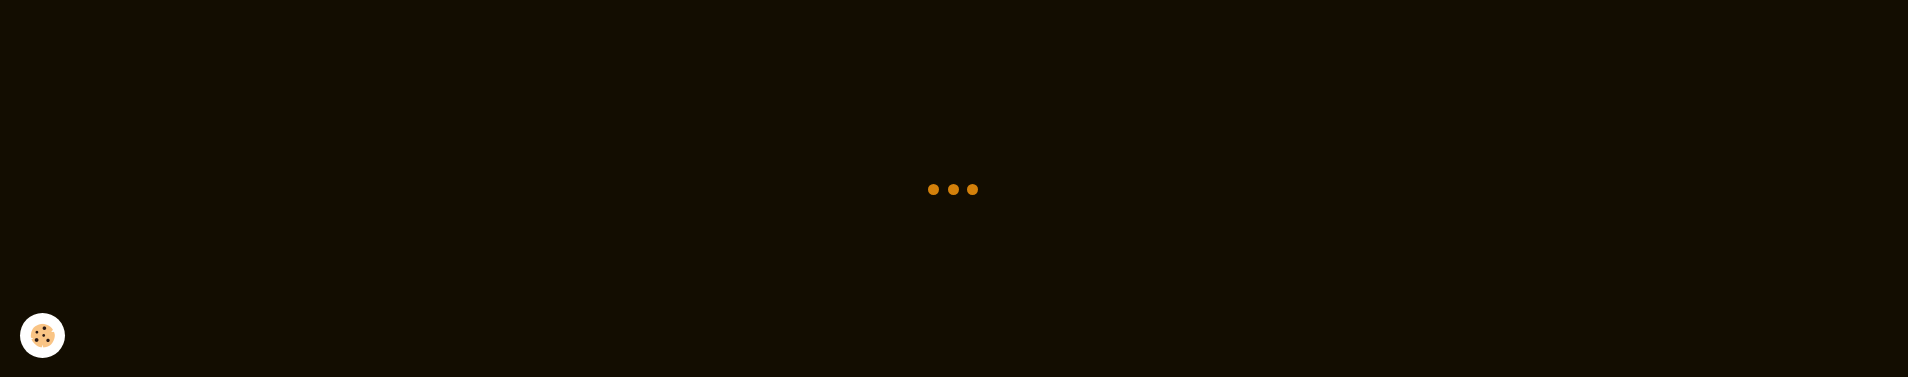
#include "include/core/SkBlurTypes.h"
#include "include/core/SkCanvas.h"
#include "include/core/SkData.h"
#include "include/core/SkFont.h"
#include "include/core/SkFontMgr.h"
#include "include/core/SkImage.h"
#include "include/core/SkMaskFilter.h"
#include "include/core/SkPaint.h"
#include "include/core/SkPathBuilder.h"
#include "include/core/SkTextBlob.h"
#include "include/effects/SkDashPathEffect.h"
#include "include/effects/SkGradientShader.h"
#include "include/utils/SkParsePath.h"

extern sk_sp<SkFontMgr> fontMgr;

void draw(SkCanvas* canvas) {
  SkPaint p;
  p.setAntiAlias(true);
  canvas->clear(SkColorSetRGB(19, 13, 1));
  p.setColor(SkColorSetRGB(211, 128, 10));
  canvas->drawCircle(933.5f, 189.5f, 5.5f, p);
  canvas->drawCircle(953.5f, 189.5f, 5.5f, p);
  canvas->drawCircle(972.5f, 189.5f, 5.5f, p);
  p.setColor(SK_ColorWHITE);
  canvas->drawCircle(42.5f, 335.5f, 22.5f, p);
  canvas->drawImageRect(SkImages::DeferredFromEncodedData(SkData::MakeFromFileName("images/1.png")), SkRect::MakeLTRB(30, 323, 55, 348), SkSamplingOptions());
}
